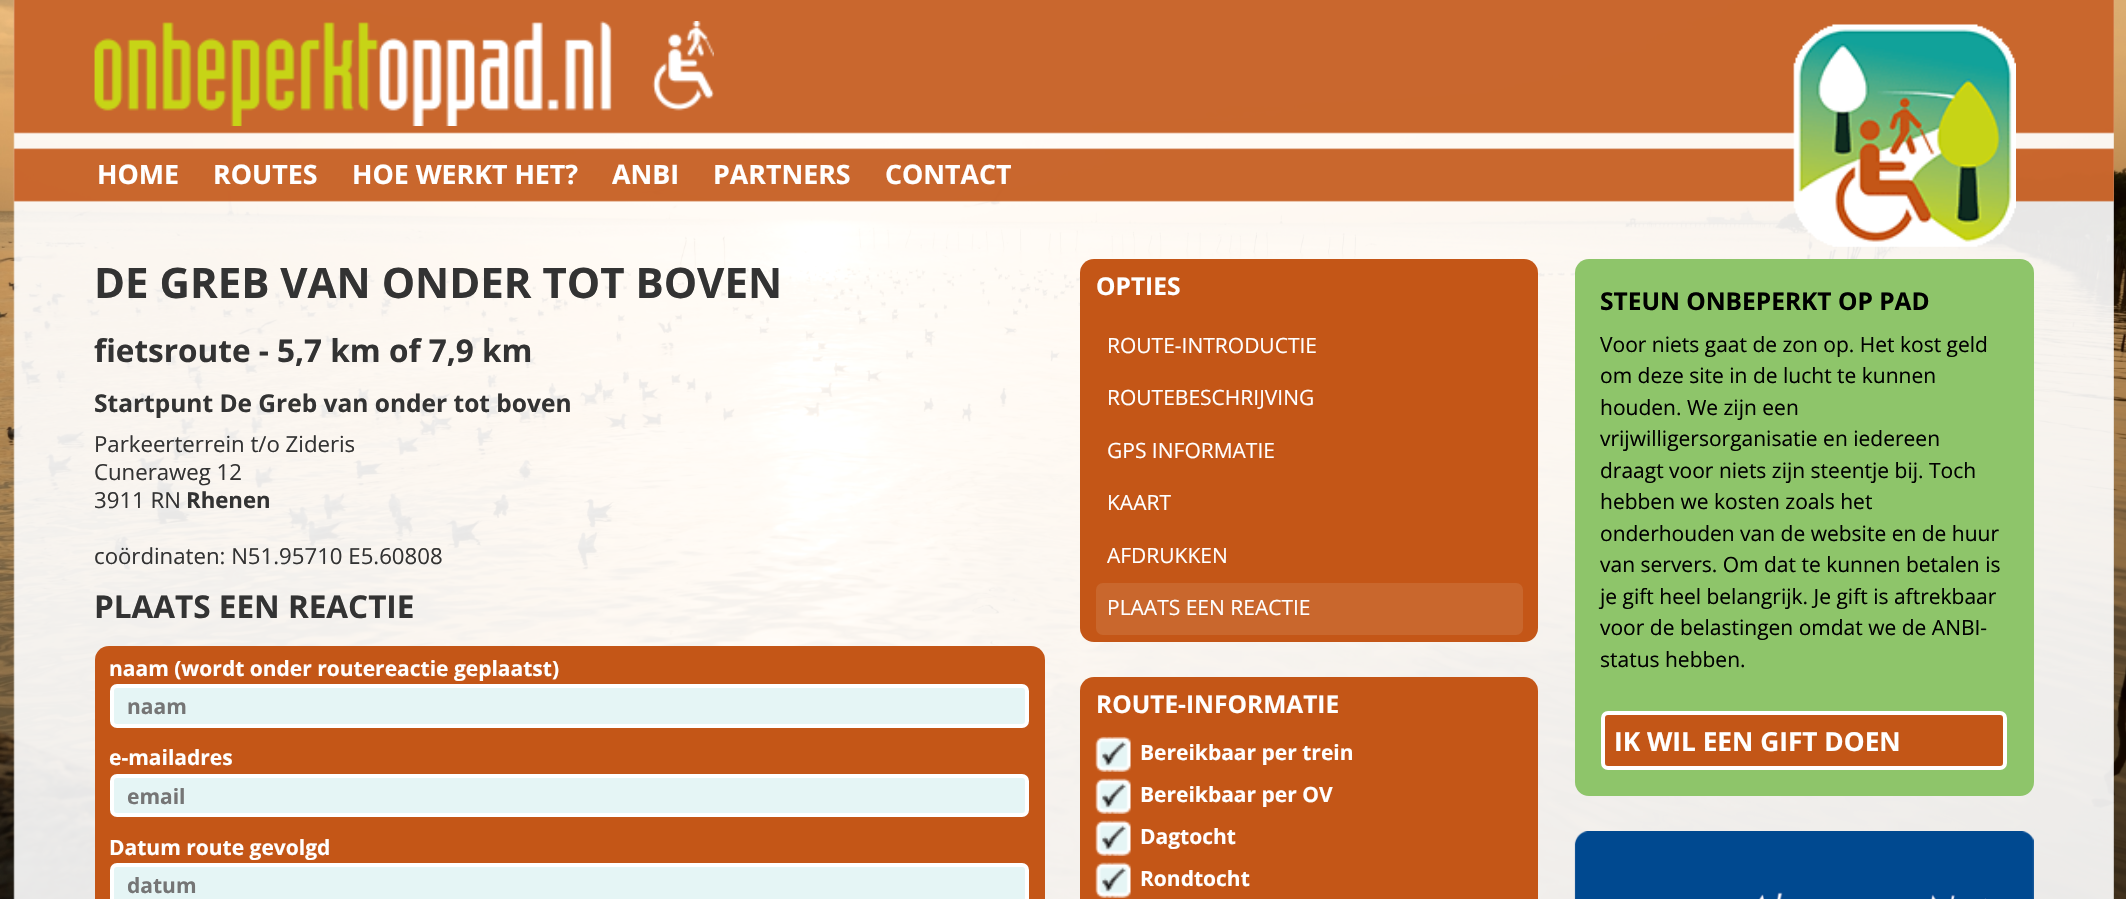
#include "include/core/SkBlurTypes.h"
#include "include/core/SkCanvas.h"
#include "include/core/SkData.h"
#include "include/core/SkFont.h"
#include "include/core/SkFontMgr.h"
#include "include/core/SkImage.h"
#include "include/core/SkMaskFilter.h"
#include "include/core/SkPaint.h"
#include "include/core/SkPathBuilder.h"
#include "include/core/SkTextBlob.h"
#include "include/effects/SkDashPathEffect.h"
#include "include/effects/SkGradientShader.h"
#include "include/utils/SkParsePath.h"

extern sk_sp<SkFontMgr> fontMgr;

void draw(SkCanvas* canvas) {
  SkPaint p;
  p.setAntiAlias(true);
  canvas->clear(SK_ColorWHITE);
  canvas->drawImageRect(SkImages::DeferredFromEncodedData(SkData::MakeFromFileName("images/1.png")), SkRect::MakeLTRB(0, 0, 2126, 899), SkSamplingOptions());
  canvas->drawImageRect(SkImages::DeferredFromEncodedData(SkData::MakeFromFileName("images/2.png")), SkRect::MakeLTRB(13, 0, 2114, 224), SkSamplingOptions());
  canvas->drawImageRect(SkImages::DeferredFromEncodedData(SkData::MakeFromFileName("images/5.png")), SkRect::MakeLTRB(13, 0, 2114, 202), SkSamplingOptions());
  canvas->drawImageRect(SkImages::DeferredFromEncodedData(SkData::MakeFromFileName("images/3.png")), SkRect::MakeLTRB(94, 21, 714, 126), SkSamplingOptions());
  canvas->drawImageRect(SkImages::DeferredFromEncodedData(SkData::MakeFromFileName("images/6.png")), SkRect::MakeLTRB(13, 224, 2114, 899), SkSamplingOptions());
  canvas->drawImageRect(SkImages::DeferredFromEncodedData(SkData::MakeFromFileName("images/4.png")), SkRect::MakeLTRB(1793, 24, 2016, 247), SkSamplingOptions());
  p.setColor(SkColorSetRGB(196, 86, 23));
  canvas->drawRoundRect(SkRect::MakeLTRB(95, 646, 1045, 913), 14, 14, p);
  p.setColor(SkColorSetRGB(229, 245, 245));
  canvas->drawRoundRect(SkRect::MakeLTRB(112, 686, 1027, 726), 5, 5, p);
  p.setStyle(SkPaint::kStroke_Style);
  p.setStrokeWidth(4);
  p.setColor(SK_ColorWHITE);
  canvas->drawRoundRect(SkRect::MakeLTRB(112, 686, 1027, 726), 5, 5, p);
  p.setStyle(SkPaint::kFill_Style);
  p.setColor(SkColorSetRGB(229, 245, 245));
  canvas->drawRoundRect(SkRect::MakeLTRB(112, 776, 1027, 815), 5, 5, p);
  p.setStyle(SkPaint::kStroke_Style);
  p.setColor(SK_ColorWHITE);
  canvas->drawRoundRect(SkRect::MakeLTRB(112, 776, 1027, 815), 5, 5, p);
  p.setStyle(SkPaint::kFill_Style);
  p.setColor(SkColorSetRGB(229, 245, 245));
  canvas->drawRoundRect(SkRect::MakeLTRB(112, 865, 1027, 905), 5, 5, p);
  p.setStyle(SkPaint::kStroke_Style);
  p.setColor(SK_ColorWHITE);
  canvas->drawRoundRect(SkRect::MakeLTRB(112, 865, 1027, 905), 5, 5, p);
  p.setStyle(SkPaint::kFill_Style);
  p.setColor(SkColorSetRGB(196, 86, 23));
  canvas->drawRoundRect(SkRect::MakeLTRB(1080, 259, 1538, 642), 14, 14, p);
  p.setColor(SkColorSetRGB(201, 103, 45));
  canvas->drawRoundRect(SkRect::MakeLTRB(1096, 583, 1523, 635), 7, 7, p);
  p.setColor(SkColorSetRGB(196, 86, 23));
  canvas->drawRoundRect(SkRect::MakeLTRB(1080, 677, 1538, 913), 14, 14, p);
  canvas->drawImageRect(SkImages::DeferredFromEncodedData(SkData::MakeFromFileName("images/7.png")), SkRect::MakeLTRB(1095, 736, 1131, 772), SkSamplingOptions());
  canvas->drawImageRect(SkImages::DeferredFromEncodedData(SkData::MakeFromFileName("images/8.png")), SkRect::MakeLTRB(1095, 778, 1131, 814), SkSamplingOptions());
  canvas->drawImageRect(SkImages::DeferredFromEncodedData(SkData::MakeFromFileName("images/8.png")), SkRect::MakeLTRB(1095, 820, 1131, 856), SkSamplingOptions());
  canvas->drawImageRect(SkImages::DeferredFromEncodedData(SkData::MakeFromFileName("images/8.png")), SkRect::MakeLTRB(1095, 862, 1131, 898), SkSamplingOptions());
  p.setColor(SkColorSetRGB(142, 197, 106));
  canvas->drawRoundRect(SkRect::MakeLTRB(1575, 259, 2034, 796), 14, 14, p);
  p.setColor(SkColorSetRGB(195, 86, 23));
  canvas->drawRoundRect(SkRect::MakeLTRB(1603, 713, 2005, 768), 5, 5, p);
  p.setStyle(SkPaint::kStroke_Style);
  p.setColor(SK_ColorWHITE);
  canvas->drawRoundRect(SkRect::MakeLTRB(1603, 713, 2005, 768), 5, 5, p);
  canvas->drawImageRect(SkImages::DeferredFromEncodedData(SkData::MakeFromFileName("images/9.png")), SkRect::MakeLTRB(1574, 831, 2034, 899), SkSamplingOptions());
  SkFont font1(fontMgr->matchFamilyStyle("Open Sans", SkFontStyle::Bold()), 26.75f);
  font1.setSubpixel(true);
  p.setStyle(SkPaint::kFill_Style);
  canvas->drawString("HOME", 97, 184, font1, p);
  canvas->drawString("ROUTES", 213, 184, font1, p);
  canvas->drawString("HOE WERKT HET?", 352, 184, font1, p);
  canvas->drawString("ANBI", 612, 184, font1, p);
  canvas->drawString("PARTNERS", 713, 184, font1, p);
  canvas->drawString("CONTACT", 885, 184, font1, p);
  SkFont font2(fontMgr->matchFamilyStyle("Open Sans", SkFontStyle::Bold()), 42);
  font2.setSubpixel(true);
  p.setColor(SkColorSetRGB(51, 51, 51));
  canvas->drawString("DE GREB VAN ONDER TOT BOVEN", 94, 298, font2, p);
  SkFont font3(fontMgr->matchFamilyStyle("Open Sans", SkFontStyle::Bold()), 31.5f);
  font3.setSubpixel(true);
  canvas->drawString("fietsroute - 5,7 km of 7,9 km", 94, 362, font3, p);
  SkFont font4(fontMgr->matchFamilyStyle("Open Sans", SkFontStyle::Bold()), 24.5f);
  font4.setSubpixel(true);
  canvas->drawString("Startpunt De Greb van onder tot boven", 94, 412, font4, p);
  SkFont font5(fontMgr->matchFamilyStyle("Open Sans", SkFontStyle::Normal()), 22.2f);
  font5.setSubpixel(true);
  canvas->drawString("Parkeerterrein t/o Zideris", 94, 452, font5, p);
  canvas->drawString("Cuneraweg 12", 94, 480, font5, p);
  canvas->drawString("3911 RN", 94, 508, font5, p);
  SkFont font6(fontMgr->matchFamilyStyle("Open Sans", SkFontStyle::Bold()), 22.2f);
  font6.setSubpixel(true);
  canvas->drawString("Rhenen", 186, 508, font6, p);
  canvas->drawString("coördinaten: N51.95710 E5.60808", 94, 564, font5, p);
  canvas->drawString("PLAATS EEN REACTIE", 94, 618, font3, p);
  SkFont font7(fontMgr->matchFamilyStyle("Open Sans", SkFontStyle::Bold()), 21);
  font7.setSubpixel(true);
  p.setColor(SK_ColorWHITE);
  canvas->drawString("naam (wordt onder routereactie geplaatst)", 109, 676, font7, p);
  p.setColor(SkColorSetRGB(117, 117, 117));
  canvas->drawString("naam", 127, 714, font7, p);
  p.setColor(SK_ColorWHITE);
  canvas->drawString("e-mailadres", 109, 765, font7, p);
  p.setColor(SkColorSetRGB(117, 117, 117));
  canvas->drawString("email", 127, 804, font7, p);
  p.setColor(SK_ColorWHITE);
  canvas->drawString("Datum route gevolgd", 109, 855, font7, p);
  canvas->save();
  canvas->clipRect(SkRect::MakeLTRB(128, 870, 1012, 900));
  p.setColor(SkColorSetRGB(117, 117, 117));
  canvas->drawString("datum", 127, 893, font7, p);
  canvas->restore();
  p.setColor(SK_ColorWHITE);
  canvas->drawString("OPTIES", 1096, 295, font4, p);
  SkFont font8(fontMgr->matchFamilyStyle("Open Sans", SkFontStyle::Normal()), 21);
  font8.setSubpixel(true);
  canvas->drawString("ROUTE-INTRODUCTIE", 1107, 353, font8, p);
  canvas->drawString("ROUTEBESCHRIJVING", 1107, 405, font8, p);
  canvas->drawString("GPS INFORMATIE", 1107, 458, font8, p);
  canvas->drawString("KAART", 1107, 510, font8, p);
  canvas->drawString("AFDRUKKEN", 1107, 563, font8, p);
  canvas->drawString("PLAATS EEN REACTIE", 1107, 615, font8, p);
  canvas->drawString("ROUTE-INFORMATIE", 1096, 713, font4, p);
  canvas->drawString("Bereikbaar per trein", 1140, 760, font7, p);
  canvas->drawString("Bereikbaar per OV", 1140, 802, font7, p);
  canvas->drawString("Dagtocht", 1140, 844, font7, p);
  canvas->drawString("Rondtocht", 1140, 886, font7, p);
  p.setColor(SK_ColorBLACK);
  canvas->drawString("STEUN ONBEPERKT OP PAD", 1600, 310, font4, p);
  canvas->drawString("Voor niets gaat de zon op. Het kost geld", 1600, 352, font8, p);
  canvas->drawString("om deze site in de lucht te kunnen", 1600, 383, font8, p);
  canvas->drawString("houden. We zijn een", 1600, 415, font8, p);
  canvas->drawString("vrijwilligersorganisatie en iedereen", 1600, 446, font8, p);
  canvas->drawString("draagt voor niets zijn steentje bij. Toch", 1600, 478, font8, p);
  canvas->drawString("hebben we kosten zoals het", 1600, 509, font8, p);
  canvas->drawString("onderhouden van de website en de huur", 1600, 541, font8, p);
  canvas->drawString("van servers. Om dat te kunnen betalen is", 1600, 572, font8, p);
  canvas->drawString("je gift heel belangrijk. Je gift is aftrekbaar", 1600, 604, font8, p);
  canvas->drawString("voor de belastingen omdat we de ANBI-", 1600, 635, font8, p);
  canvas->drawString("status hebben.", 1600, 667, font8, p);
  SkFont font9(fontMgr->matchFamilyStyle("Open Sans", SkFontStyle::Bold()), 26.25f);
  font9.setSubpixel(true);
  p.setColor(SK_ColorWHITE);
  canvas->drawString("IK WIL EEN GIFT DOEN", 1614, 751, font9, p);
}
